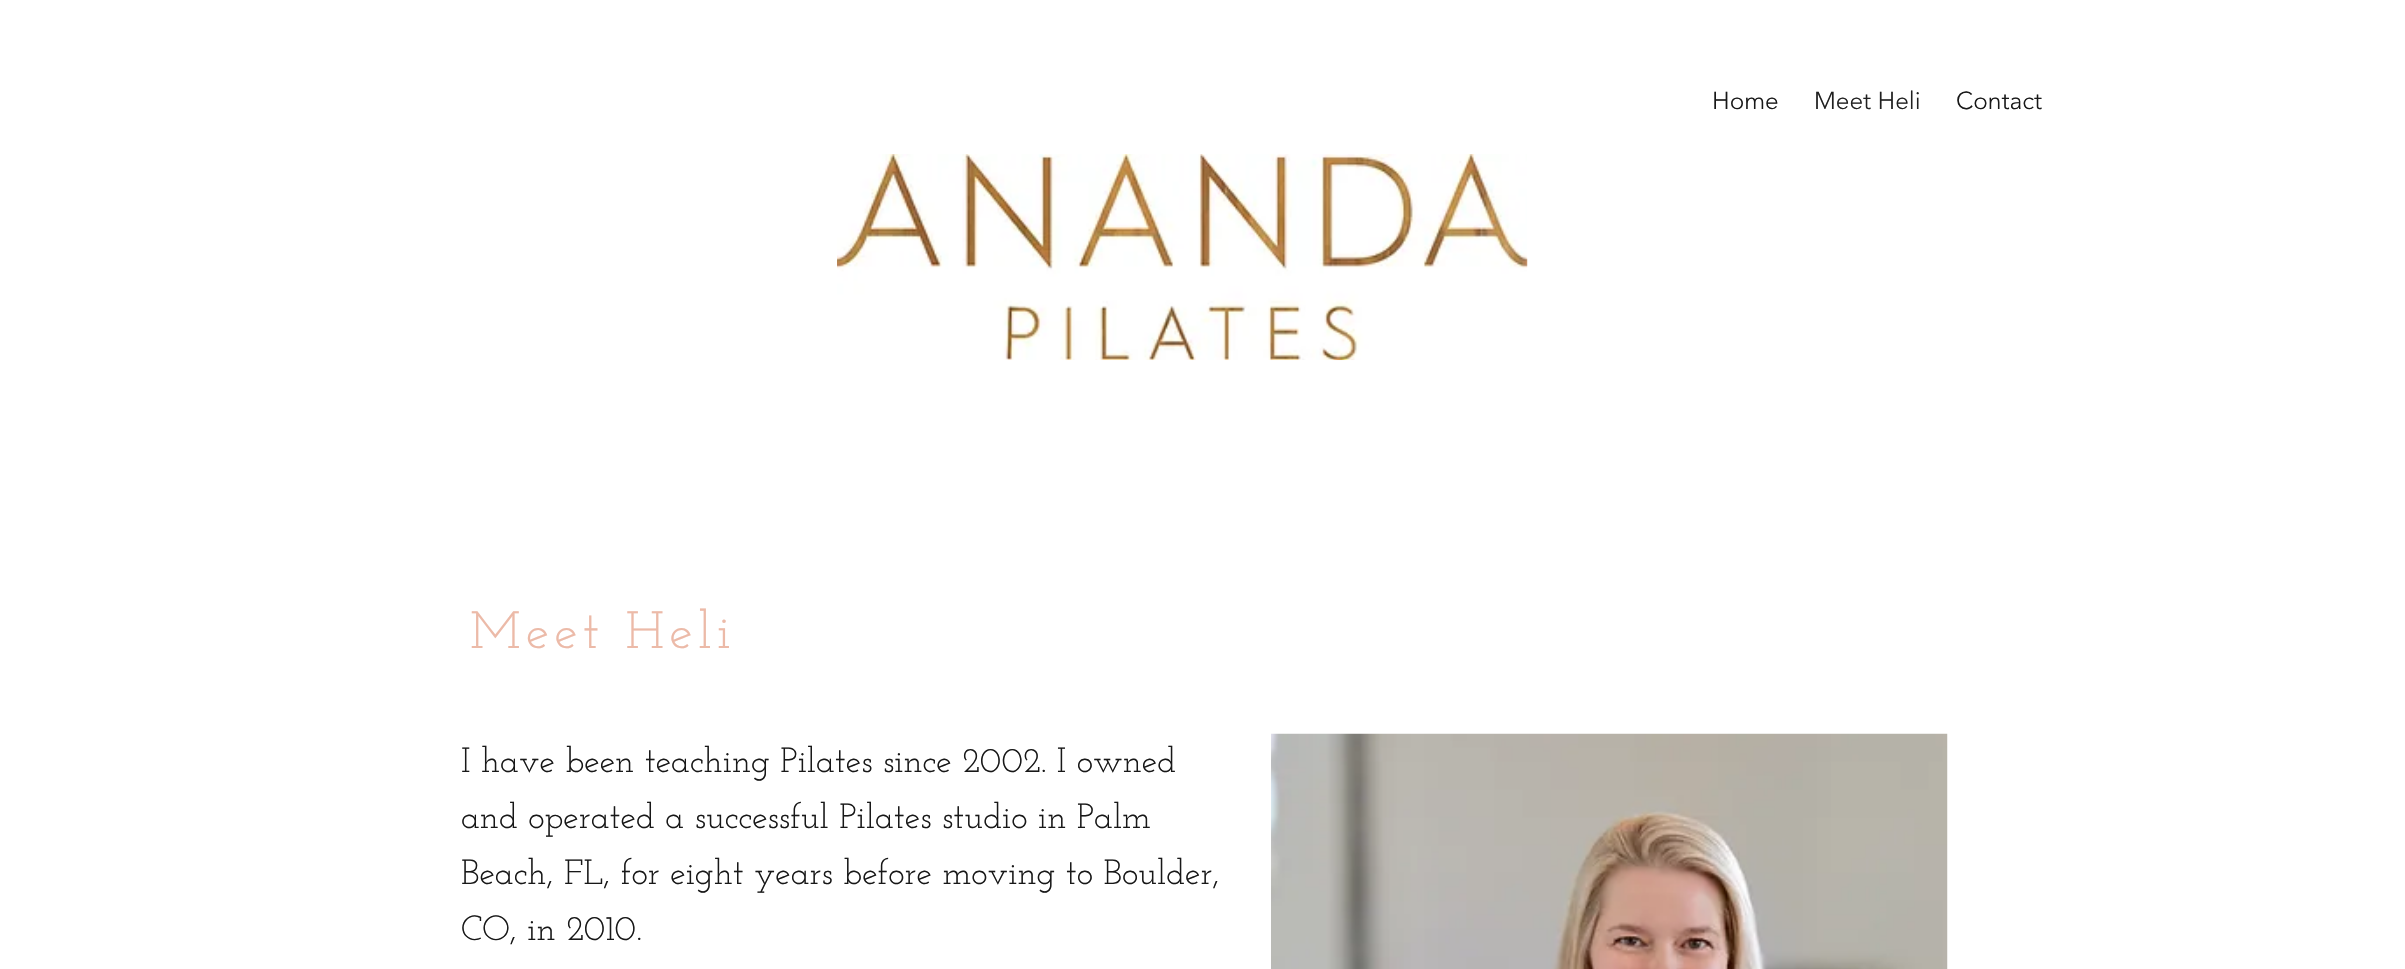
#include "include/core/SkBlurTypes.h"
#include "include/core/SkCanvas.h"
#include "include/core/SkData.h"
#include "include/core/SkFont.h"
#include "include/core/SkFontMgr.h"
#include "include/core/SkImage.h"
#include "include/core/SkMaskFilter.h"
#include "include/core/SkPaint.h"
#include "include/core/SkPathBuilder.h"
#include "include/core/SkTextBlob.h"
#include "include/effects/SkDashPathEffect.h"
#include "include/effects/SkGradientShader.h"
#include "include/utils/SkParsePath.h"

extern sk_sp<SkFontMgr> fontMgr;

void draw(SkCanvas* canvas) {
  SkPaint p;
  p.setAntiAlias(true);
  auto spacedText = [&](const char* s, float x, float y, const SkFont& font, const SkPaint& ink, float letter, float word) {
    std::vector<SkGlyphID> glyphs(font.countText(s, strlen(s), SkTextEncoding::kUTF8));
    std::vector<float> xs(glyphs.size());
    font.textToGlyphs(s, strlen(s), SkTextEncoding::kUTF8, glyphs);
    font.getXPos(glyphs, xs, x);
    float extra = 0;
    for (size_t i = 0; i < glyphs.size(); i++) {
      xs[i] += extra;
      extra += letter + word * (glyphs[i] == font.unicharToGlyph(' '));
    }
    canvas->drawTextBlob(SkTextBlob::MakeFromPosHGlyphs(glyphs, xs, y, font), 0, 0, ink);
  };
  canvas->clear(SK_ColorWHITE);
  canvas->drawImageRect(SkImages::DeferredFromEncodedData(SkData::MakeFromFileName("images/1.png")), SkRect::MakeLTRB(837, 154, 1528, 361), SkSamplingOptions());
  canvas->drawImageRect(SkImages::DeferredFromEncodedData(SkData::MakeFromFileName("images/2.png")), SkRect::MakeLTRB(1271, 733, 1948, 969), SkSamplingOptions());
  SkFont font1(fontMgr->matchFamilyStyle("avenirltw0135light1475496", SkFontStyle(300, SkFontStyle::kNormal_Width, SkFontStyle::kUpright_Slant)), 24.5f);
  font1.setSubpixel(true);
  p.setColor(SkColorSetRGB(24, 24, 24));
  canvas->drawString("Home", 1712, 109, font1, p);
  p.setColor(SkColorSetRGB(32, 32, 32));
  canvas->drawString("Meet Heli", 1814, 109, font1, p);
  p.setColor(SkColorSetRGB(24, 24, 24));
  canvas->drawString("Contact", 1956, 109, font1, p);
  SkFont font2(fontMgr->matchFamilyStyle("Josefin Slab", SkFontStyle::Normal()), 52.5f);
  font2.setSubpixel(true);
  p.setColor(SkColorSetRGB(236, 186, 168));
  spacedText("Meet Heli", 470, 648, font2, p, 5.25f, 0);
  SkFont font3(fontMgr->matchFamilyStyle("Josefin Slab", SkFontStyle::Normal()), 35);
  font3.setSubpixel(true);
  p.setColor(SkColorSetRGB(24, 24, 24));
  canvas->drawString("I have been teaching Pilates since 2002. I owned", 461, 772, font3, p);
  canvas->drawString("and operated a successful Pilates studio in Palm", 461, 828, font3, p);
  canvas->drawString("Beach, FL, for eight years before moving to Boulder,", 461, 884, font3, p);
  canvas->drawString("CO, in 2010.", 461, 940, font3, p);
}
